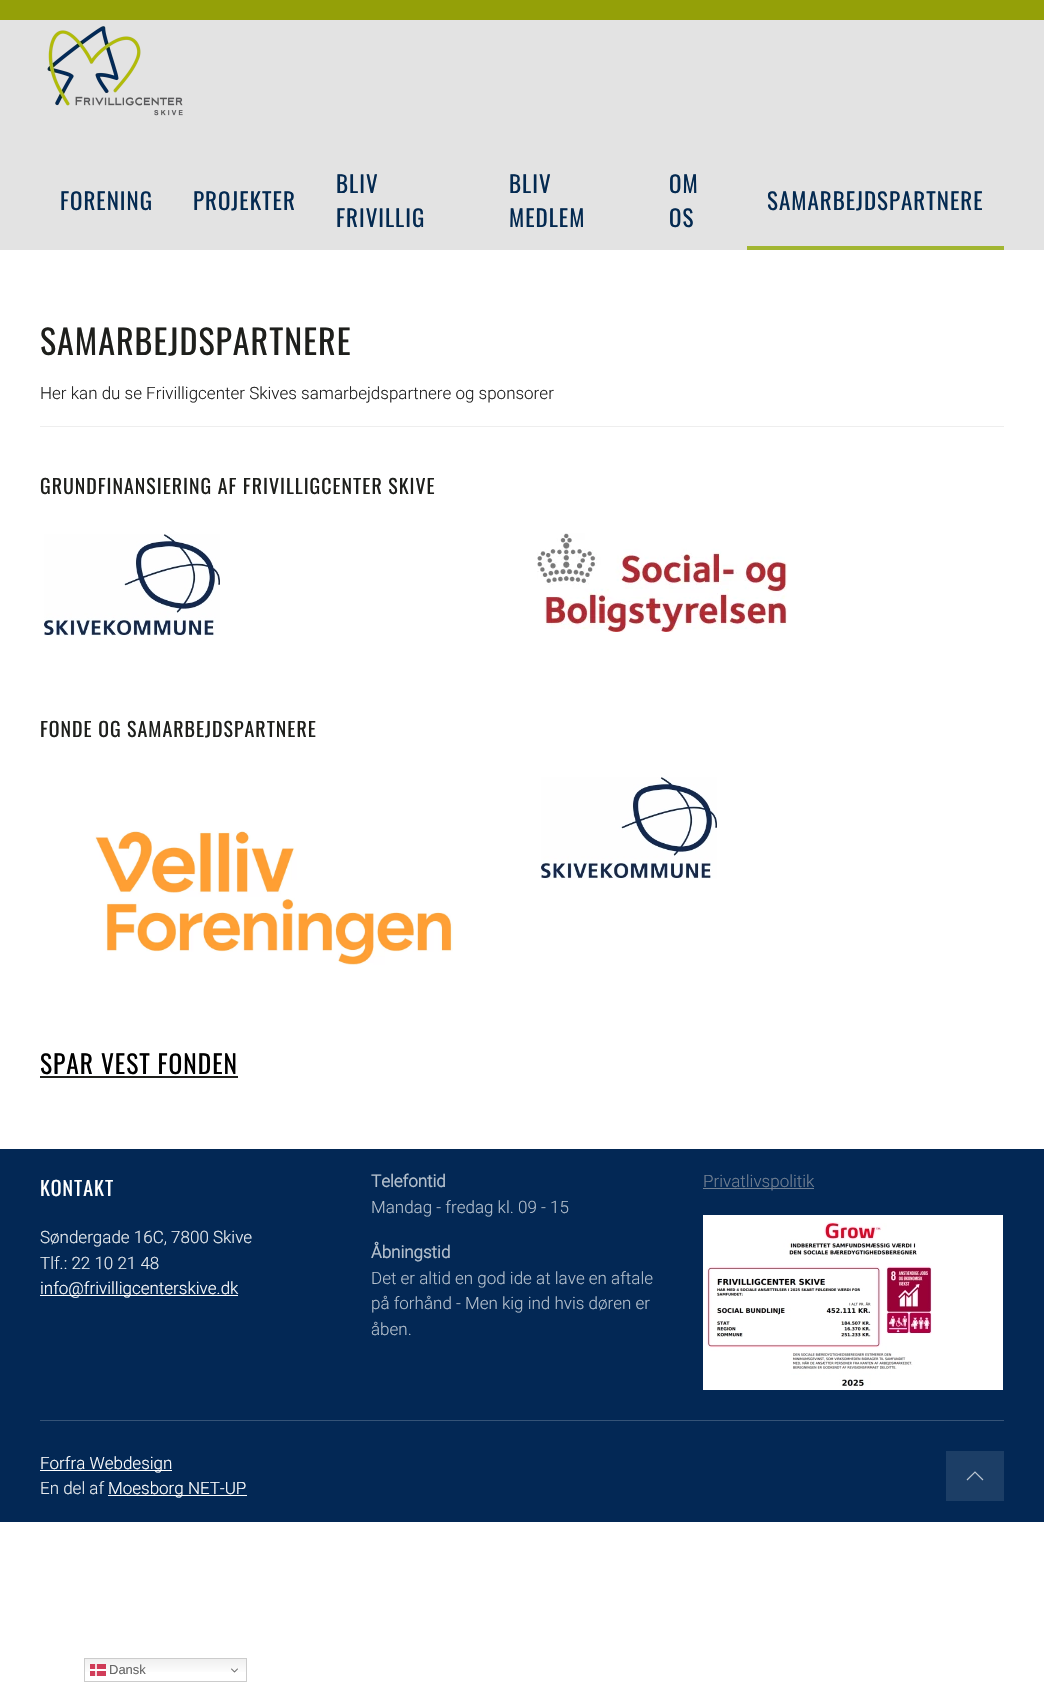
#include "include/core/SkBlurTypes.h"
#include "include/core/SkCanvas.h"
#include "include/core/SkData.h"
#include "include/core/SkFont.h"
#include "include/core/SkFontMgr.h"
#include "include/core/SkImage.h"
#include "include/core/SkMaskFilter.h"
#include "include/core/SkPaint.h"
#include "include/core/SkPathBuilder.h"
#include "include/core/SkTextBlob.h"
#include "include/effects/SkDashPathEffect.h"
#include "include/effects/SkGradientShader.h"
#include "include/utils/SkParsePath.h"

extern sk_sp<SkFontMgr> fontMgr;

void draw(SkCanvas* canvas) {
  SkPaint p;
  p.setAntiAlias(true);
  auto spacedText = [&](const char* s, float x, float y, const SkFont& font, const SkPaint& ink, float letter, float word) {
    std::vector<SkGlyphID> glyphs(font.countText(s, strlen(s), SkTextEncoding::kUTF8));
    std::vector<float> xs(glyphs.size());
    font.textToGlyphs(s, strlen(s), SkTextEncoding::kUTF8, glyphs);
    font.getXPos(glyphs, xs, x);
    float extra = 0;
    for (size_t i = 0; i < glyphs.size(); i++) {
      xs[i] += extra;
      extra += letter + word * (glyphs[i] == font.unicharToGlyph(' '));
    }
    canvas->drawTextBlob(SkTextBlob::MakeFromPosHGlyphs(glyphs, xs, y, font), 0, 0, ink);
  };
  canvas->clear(SK_ColorWHITE);
  p.setColor(SkColorSetRGB(227, 227, 227));
  canvas->drawRect(SkRect::MakeLTRB(0, 20, 1044, 250), p);
  canvas->drawImageRect(SkImages::DeferredFromEncodedData(SkData::MakeFromFileName("images/1.png")), SkRect::MakeLTRB(47, 26, 183, 116), SkSamplingOptions());
  p.setColor(SkColorSetRGB(162, 182, 50));
  canvas->drawRect(SkRect::MakeLTRB(747, 246, 1004, 250), p);
  p.setColor(SkColorSetRGB(238, 238, 238));
  canvas->drawRect(SkRect::MakeLTRB(40, 426, 1004, 427), p);
  canvas->drawImageRect(SkImages::DeferredFromEncodedData(SkData::MakeFromFileName("images/2.png")), SkRect::MakeLTRB(44, 534, 220, 636), SkSamplingOptions());
  canvas->drawImageRect(SkImages::DeferredFromEncodedData(SkData::MakeFromFileName("images/3.png")), SkRect::MakeLTRB(537, 533, 787, 632), SkSamplingOptions());
  canvas->drawImageRect(SkImages::DeferredFromEncodedData(SkData::MakeFromFileName("images/2.png")), SkRect::MakeLTRB(541, 777, 717, 879), SkSamplingOptions());
  canvas->drawImageRect(SkImages::DeferredFromEncodedData(SkData::MakeFromFileName("images/4.png")), SkRect::MakeLTRB(95, 831, 453, 965), SkSamplingOptions());
  p.setColor(SkColorSetRGB(30, 31, 28));
  canvas->drawRect(SkRect::MakeLTRB(40, 1076, 238, 1078), p);
  p.setColor(SkColorSetRGB(3, 40, 85));
  canvas->drawRect(SkRect::MakeLTRB(0, 1149, 1044, 1522), p);
  p.setColor(SK_ColorWHITE);
  canvas->drawRect(SkRect::MakeLTRB(40, 1295, 238, 1296), p);
  p.setColor(SkColorSetRGB(113, 128, 146));
  canvas->drawRect(SkRect::MakeLTRB(703, 1188, 814, 1189), p);
  canvas->drawImageRect(SkImages::DeferredFromEncodedData(SkData::MakeFromFileName("images/5.png")), SkRect::MakeLTRB(703, 1215, 1003, 1390), SkSamplingOptions());
  p.setColor(SkColorSetRGB(53, 83, 119));
  canvas->drawRect(SkRect::MakeLTRB(40, 1420, 1004, 1421), p);
  p.setColor(SK_ColorWHITE);
  canvas->drawRect(SkRect::MakeLTRB(40, 1470, 172, 1471), p);
  canvas->drawRect(SkRect::MakeLTRB(108, 1495, 247, 1496), p);
  p.setColor(SkColorSetRGB(28, 62, 102));
  canvas->drawRect(SkRect::MakeLTRB(946, 1451, 1004, 1501), p);
  p.setStyle(SkPaint::kStroke_Style);
  p.setStrokeWidth(1.2f);
  p.setColor(SkColorSetRGB(187, 197, 209));
  canvas->drawPath(SkPathBuilder().moveTo(967, 1480).lineTo(975, 1472).lineTo(983, 1480).detach(), p);
  p.setStyle(SkPaint::kFill_Style);
  p.setColor(SkColorSetRGB(148, 160, 8));
  canvas->drawRect(SkRect::MakeLTRB(0, 0, 1044, 20), p);
  {
    const SkColor colors[] = {SkColorSetRGB(239, 239, 239), SK_ColorWHITE};
    const float stops[] = {0, 0.7f};
    const SkPoint ends[] = {{166, 1658}, {166, 1682}};
    p.setShader(SkGradientShader::MakeLinear(ends, colors, stops, 2, SkTileMode::kClamp));
    p.setAlpha(255);
  }
  canvas->drawRect(SkRect::MakeLTRB(85, 1659, 246, 1672), p);
  {
    const SkColor colors[] = {SkColorSetRGB(206, 57, 86), SkColorSetRGB(209, 61, 89)};
    const float stops[] = {0, 0.7f};
    const SkPoint ends[] = {{166, 1658}, {166, 1682}};
    p.setShader(SkGradientShader::MakeLinear(ends, colors, stops, 2, SkTileMode::kClamp));
    p.setAlpha(255);
  }
  canvas->drawRect(SkRect::MakeLTRB(90, 1664, 106, 1676), p);
  p.setStyle(SkPaint::kStroke_Style);
  p.setStrokeWidth(1);
  p.setShader(nullptr);
  p.setColor(SkColorSetRGB(204, 204, 204));
  canvas->drawRect(SkRect::MakeLTRB(84.5f, 1658.5f, 246.5f, 1681.5f), p);
  p.setStyle(SkPaint::kFill_Style);
  p.setColor(SkColorSetRGB(246, 216, 222));
  canvas->drawRect(SkRect::MakeLTRB(95, 1664, 97, 1676), p);
  canvas->drawImageRect(SkImages::DeferredFromEncodedData(SkData::MakeFromFileName("images/6.png")), SkRect::MakeLTRB(231, 1668, 238, 1673), SkSamplingOptions());
  p.setColor(SkColorSetRGB(254, 254, 254));
  canvas->drawRect(SkRect::MakeLTRB(90, 1669, 106, 1671), p);
  SkFont font1(fontMgr->matchFamilyStyle("Oswald", SkFontStyle::Normal()), 23);
  font1.setSubpixel(true);
  p.setColor(SkColorSetRGB(4, 42, 81));
  spacedText("FORENING", 60, 210, font1, p, 1, 0);
  spacedText("PROJEKTER", 193, 210, font1, p, 1, 0);
  spacedText("BLIV", 336, 193, font1, p, 1, 0);
  spacedText("FRIVILLIG", 336, 227, font1, p, 1, 0);
  spacedText("BLIV", 509, 193, font1, p, 1, 0);
  spacedText("MEDLEM", 509, 227, font1, p, 1, 0);
  spacedText("OM", 669, 193, font1, p, 1, 0);
  spacedText("OS", 669, 227, font1, p, 1, 0);
  spacedText("SAMARBEJDSPARTNERE", 767, 210, font1, p, 1, 0);
  SkFont font2(fontMgr->matchFamilyStyle("Oswald", SkFontStyle::Normal()), 34);
  font2.setSubpixel(true);
  p.setColor(SkColorSetRGB(30, 31, 28));
  spacedText("SAMARBEJDSPARTNERE", 40, 355, font2, p, 1, 0);
  SkFont font3(fontMgr->matchFamilyStyle("Roboto", SkFontStyle(300, SkFontStyle::kNormal_Width, SkFontStyle::kUpright_Slant)), 17);
  font3.setSubpixel(true);
  p.setColor(SkColorSetRGB(34, 34, 34));
  canvas->drawString("Her kan du se Frivilligcenter Skives samarbejdspartnere og sponsorer", 40, 399, font3, p);
  SkFont font4(fontMgr->matchFamilyStyle("Oswald", SkFontStyle::Normal()), 19.9f);
  font4.setSubpixel(true);
  p.setColor(SkColorSetRGB(30, 31, 28));
  spacedText("GRUNDFINANSIERING AF FRIVILLIGCENTER SKIVE", 40, 494, font4, p, 1, 0);
  spacedText("FONDE OG SAMARBEJDSPARTNERE", 40, 737, font4, p, 1, 0);
  SkFont font5(fontMgr->matchFamilyStyle("Oswald", SkFontStyle::Normal()), 25.5f);
  font5.setSubpixel(true);
  p.setColor(SK_ColorBLACK);
  spacedText("SPAR VEST FONDEN", 40, 1074, font5, p, 1, 0);
  p.setColor(SK_ColorWHITE);
  spacedText("KONTAKT", 40, 1196, font4, p, 1, 0);
  p.setColor(SkColorSetRGB(230, 234, 238));
  canvas->drawString("Søndergade 16C, 7800 Skive", 40, 1243, font3, p);
  canvas->drawString("Tlf.: 22 10 21 48", 40, 1269, font3, p);
  p.setColor(SK_ColorWHITE);
  canvas->drawString("info@frivilligcenterskive.dk", 40, 1294, font3, p);
  SkFont font6(fontMgr->matchFamilyStyle("Roboto", SkFontStyle::Bold()), 17);
  font6.setSubpixel(true);
  p.setColor(SkColorSetRGB(179, 191, 204));
  canvas->drawString("Telefontid", 371, 1187, font6, p);
  canvas->drawString("Mandag - fredag kl. 09 - 15", 371, 1213, font3, p);
  canvas->drawString("Åbningstid", 371, 1258, font6, p);
  canvas->drawString("Det er altid en god ide at lave en aftale", 371, 1284, font3, p);
  canvas->drawString("på forhånd - Men kig ind hvis døren er", 371, 1309, font3, p);
  canvas->drawString("åben.", 371, 1335, font3, p);
  p.setColor(SkColorSetRGB(114, 128, 146));
  canvas->drawString("Privatlivspolitik", 703, 1187, font3, p);
  p.setColor(SK_ColorWHITE);
  canvas->drawString("Forfra Webdesign", 40, 1469, font3, p);
  p.setColor(SkColorSetRGB(230, 234, 238));
  canvas->drawString("En del af", 40, 1494, font3, p);
  p.setColor(SK_ColorWHITE);
  canvas->drawString("Moesborg NET-UP", 108, 1494, font3, p);
  SkFont font7(fontMgr->matchFamilyStyle("Liberation Sans", SkFontStyle::Normal()), 13);
  font7.setSubpixel(true);
  p.setColor(SkColorSetRGB(102, 102, 102));
  canvas->drawString("Dansk", 109, 1674, font7, p);
}
